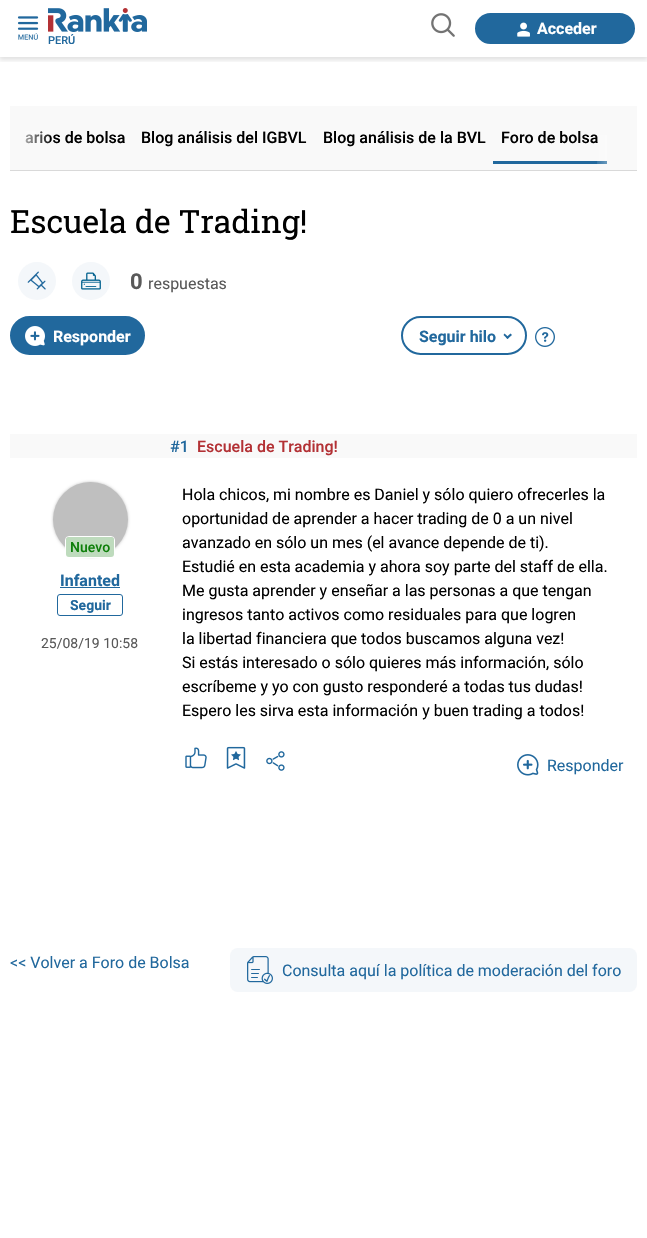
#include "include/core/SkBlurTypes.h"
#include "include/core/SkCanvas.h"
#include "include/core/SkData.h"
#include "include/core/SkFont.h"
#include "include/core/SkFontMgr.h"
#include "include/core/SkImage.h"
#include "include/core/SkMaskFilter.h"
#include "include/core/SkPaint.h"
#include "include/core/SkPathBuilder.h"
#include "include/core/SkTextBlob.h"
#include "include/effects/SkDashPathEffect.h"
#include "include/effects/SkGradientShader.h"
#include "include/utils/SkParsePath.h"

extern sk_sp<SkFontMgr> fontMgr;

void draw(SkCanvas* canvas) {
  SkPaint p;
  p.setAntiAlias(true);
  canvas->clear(SK_ColorWHITE);
  canvas->save();
  canvas->clipRect(SkRect::MakeLTRB(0, 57, 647, 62));
  p.setColor(SkColorSetARGB(31, 0, 0, 0));
  p.setMaskFilter(SkMaskFilter::MakeBlur(kNormal_SkBlurStyle, 2.5f));
  canvas->drawRect(SkRect::MakeLTRB(-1, 1, 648, 60), p);
  p.setMaskFilter(nullptr);
  canvas->restore();
  canvas->drawImageRect(SkImages::DeferredFromEncodedData(SkData::MakeFromFileName("images/1.png")), SkRect::MakeLTRB(431, 13, 455, 37), SkSamplingOptions());
  p.setColor(SkColorSetRGB(33, 104, 157));
  canvas->drawRoundRect(SkRect::MakeLTRB(476, 14, 634, 43), 14.5f, 14.5f, p);
  p.setStyle(SkPaint::kStroke_Style);
  p.setStrokeWidth(2);
  canvas->drawRoundRect(SkRect::MakeLTRB(476, 14, 634, 43), 14.5f, 14.5f, p);
  canvas->drawImageRect(SkImages::DeferredFromEncodedData(SkData::MakeFromFileName("images/2.png")), SkRect::MakeLTRB(517, 22, 530, 37), SkSamplingOptions());
  canvas->drawImageRect(SkImages::DeferredFromEncodedData(SkData::MakeFromFileName("images/3.png")), SkRect::MakeLTRB(17, 16, 39, 40), SkSamplingOptions());
  canvas->drawImageRect(SkImages::DeferredFromEncodedData(SkData::MakeFromFileName("images/4.png")), SkRect::MakeLTRB(48, 8, 147, 32), SkSamplingOptions());
  p.setStyle(SkPaint::kFill_Style);
  p.setColor(SkColorSetRGB(249, 249, 249));
  canvas->drawRect(SkRect::MakeLTRB(10, 106, 637, 170), p);
  p.setColor(SkColorSetRGB(217, 217, 217));
  canvas->drawRect(SkRect::MakeLTRB(10, 170, 637, 171), p);
  p.setColor(SkColorSetRGB(33, 104, 157));
  canvas->drawRect(SkRect::MakeLTRB(493, 161, 607, 164), p);
  p.setColor(SkColorSetRGB(244, 247, 250));
  canvas->drawCircle(37, 281, 19, p);
  canvas->drawImageRect(SkImages::DeferredFromEncodedData(SkData::MakeFromFileName("images/5.png")), SkRect::MakeLTRB(27, 271, 46, 290), SkSamplingOptions());
  canvas->drawCircle(91, 281, 19, p);
  canvas->drawImageRect(SkImages::DeferredFromEncodedData(SkData::MakeFromFileName("images/6.png")), SkRect::MakeLTRB(81, 272, 101, 290), SkSamplingOptions());
  p.setColor(SkColorSetRGB(33, 104, 157));
  canvas->drawRoundRect(SkRect::MakeLTRB(11, 317, 144, 354), 18.5f, 18.5f, p);
  p.setStyle(SkPaint::kStroke_Style);
  canvas->drawRoundRect(SkRect::MakeLTRB(11, 317, 144, 354), 18.5f, 18.5f, p);
  canvas->drawImageRect(SkImages::DeferredFromEncodedData(SkData::MakeFromFileName("images/7.png")), SkRect::MakeLTRB(25, 326, 45, 346), SkSamplingOptions());
  canvas->drawRoundRect(SkRect::MakeLTRB(402, 317, 526, 354), 18.5f, 18.5f, p);
  p.setStyle(SkPaint::kFill_Style);
  canvas->drawPath(SkPathBuilder().moveTo(510.5f, 333.5f).lineTo(512, 335).lineTo(507.5f, 339).lineTo(506, 337.5f).close().detach(), p);
  canvas->drawPath(SkPathBuilder().moveTo(504.5f, 333.5f).lineTo(509, 337.5f).lineTo(507.5f, 339).lineTo(503.5f, 335).close().detach(), p);
  canvas->drawImageRect(SkImages::DeferredFromEncodedData(SkData::MakeFromFileName("images/8.png")), SkRect::MakeLTRB(535, 327, 555, 347), SkSamplingOptions());
  p.setColor(SkColorSetRGB(249, 249, 249));
  canvas->drawRect(SkRect::MakeLTRB(10, 434, 637, 458), p);
  p.setColor(SkColorSetARGB(64, 0, 0, 0));
  p.setMaskFilter(SkMaskFilter::MakeBlur(kNormal_SkBlurStyle, 1.5f));
  canvas->drawRoundRect(SkRect::MakeLTRB(53, 482, 128, 557), 37.5f, 37.5f, p);
  p.setMaskFilter(nullptr);
  p.setColor(SkColorSetRGB(191, 191, 191));
  canvas->drawCircle(90.5f, 519.5f, 37.5f, p);
  p.setStyle(SkPaint::kStroke_Style);
  p.setStrokeWidth(1);
  p.setColor(SK_ColorWHITE);
  canvas->drawRoundRect(SkRect::MakeLTRB(65.5f, 536.5f, 114.5f, 557.5f), 3.5f, 3.5f, p);
  p.setStyle(SkPaint::kFill_Style);
  p.setColor(SkColorSetRGB(190, 219, 189));
  canvas->drawRoundRect(SkRect::MakeLTRB(66, 537, 114, 557), 3, 3, p);
  p.setColor(SkColorSetRGB(33, 104, 157));
  canvas->drawRect(SkRect::MakeLTRB(60, 587, 120, 588), p);
  p.setStyle(SkPaint::kStroke_Style);
  canvas->drawRoundRect(SkRect::MakeLTRB(57.5f, 594.5f, 122.5f, 615.5f), 2.5f, 2.5f, p);
  canvas->drawImageRect(SkImages::DeferredFromEncodedData(SkData::MakeFromFileName("images/9.png")), SkRect::MakeLTRB(185, 747, 207, 769), SkSamplingOptions());
  canvas->drawImageRect(SkImages::DeferredFromEncodedData(SkData::MakeFromFileName("images/10.png")), SkRect::MakeLTRB(226, 746, 246, 769), SkSamplingOptions());
  canvas->drawImageRect(SkImages::DeferredFromEncodedData(SkData::MakeFromFileName("images/11.png")), SkRect::MakeLTRB(266, 751, 285, 771), SkSamplingOptions());
  canvas->drawImageRect(SkImages::DeferredFromEncodedData(SkData::MakeFromFileName("images/12.png")), SkRect::MakeLTRB(517, 754, 539, 776), SkSamplingOptions());
  p.setStyle(SkPaint::kFill_Style);
  p.setColor(SkColorSetRGB(244, 247, 250));
  canvas->drawRoundRect(SkRect::MakeLTRB(230, 948, 637, 992), 8, 8, p);
  canvas->drawImageRect(SkImages::DeferredFromEncodedData(SkData::MakeFromFileName("images/13.png")), SkRect::MakeLTRB(247, 956, 273, 984), SkSamplingOptions());
  SkFont font1(fontMgr->matchFamilyStyle("Roboto", SkFontStyle::Bold()), 16);
  font1.setSubpixel(true);
  p.setColor(SK_ColorWHITE);
  canvas->drawString("Acceder", 537, 34, font1, p);
  SkFont font2(fontMgr->matchFamilyStyle("Roboto", SkFontStyle(500, SkFontStyle::kNormal_Width, SkFontStyle::kUpright_Slant)), 11);
  font2.setSubpixel(true);
  p.setColor(SkColorSetRGB(33, 104, 157));
  canvas->drawString("PERÚ", 48, 44, font2, p);
  SkFont font3(fontMgr->matchFamilyStyle("Roboto", SkFontStyle(500, SkFontStyle::kNormal_Width, SkFontStyle::kUpright_Slant)), 16);
  font3.setSubpixel(true);
  p.setColor(SK_ColorBLACK);
  canvas->drawString("arios de bolsa", 25, 143, font3, p);
  canvas->drawString("Blog análisis del IGBVL", 141, 143, font3, p);
  canvas->drawString("Blog análisis de la BVL", 323, 143, font3, p);
  canvas->drawString("Foro de bolsa", 501, 143, font3, p);
  {
    const SkColor colors[] = {SkColorSetRGB(249, 249, 249), SkColorSetARGB(26, 255, 255, 255)};
    const float stops[] = {0, 1};
    const SkPoint ends[] = {{10, 136}, {50, 136}};
    p.setShader(SkGradientShader::MakeLinear(ends, colors, stops, 2, SkTileMode::kClamp));
    p.setAlpha(255);
  }
  canvas->drawRect(SkRect::MakeLTRB(25, 131, 50, 144), p);
  {
    const SkColor colors[] = {SkColorSetRGB(249, 249, 249), SkColorSetARGB(26, 255, 255, 255)};
    const float stops[] = {0, 1};
    const SkPoint ends[] = {{637, 136}, {597, 136}};
    p.setShader(SkGradientShader::MakeLinear(ends, colors, stops, 2, SkTileMode::kClamp));
    p.setAlpha(255);
  }
  canvas->drawRect(SkRect::MakeLTRB(597, 135, 607, 164), p);
  SkFont font4(fontMgr->matchFamilyStyle("Roboto Slab", SkFontStyle::Normal()), 32);
  font4.setSubpixel(true);
  p.setShader(nullptr);
  p.setColor(SK_ColorBLACK);
  canvas->drawString("Escuela de Trading!", 10, 233, font4, p);
  SkFont font5(fontMgr->matchFamilyStyle("Roboto", SkFontStyle::Bold()), 22);
  font5.setSubpixel(true);
  p.setColor(SkColorSetRGB(89, 89, 89));
  canvas->drawString("0", 130, 289, font5, p);
  SkFont font6(fontMgr->matchFamilyStyle("Roboto", SkFontStyle::Normal()), 16);
  font6.setSubpixel(true);
  canvas->drawString("respuestas", 148, 289, font6, p);
  p.setColor(SK_ColorWHITE);
  canvas->drawString("Responder", 53, 342, font1, p);
  p.setColor(SkColorSetRGB(33, 104, 157));
  canvas->drawString("Seguir hilo", 419, 342, font1, p);
  canvas->drawString("#1", 170, 452, font3, p);
  p.setColor(SkColorSetRGB(179, 49, 53));
  canvas->drawString("Escuela de Trading!", 197, 452, font3, p);
  SkFont font7(fontMgr->matchFamilyStyle("Roboto", SkFontStyle(500, SkFontStyle::kNormal_Width, SkFontStyle::kUpright_Slant)), 14);
  font7.setSubpixel(true);
  p.setColor(SkColorSetRGB(13, 127, 9));
  canvas->drawString("Nuevo", 70, 552, font7, p);
  p.setColor(SkColorSetRGB(33, 104, 157));
  canvas->drawString("Infanted", 60, 586, font1, p);
  SkFont font8(fontMgr->matchFamilyStyle("Roboto", SkFontStyle::Bold()), 14);
  font8.setSubpixel(true);
  canvas->drawString("Seguir", 70, 610, font8, p);
  SkFont font9(fontMgr->matchFamilyStyle("Roboto", SkFontStyle::Normal()), 14);
  font9.setSubpixel(true);
  p.setColor(SkColorSetRGB(89, 89, 89));
  canvas->drawString("25/08/19 10:58", 41, 648, font9, p);
  p.setColor(SK_ColorBLACK);
  canvas->drawString("Hola chicos, mi nombre es Daniel y sólo quiero ofrecerles la", 182, 500, font6, p);
  canvas->drawString("oportunidad de aprender a hacer trading de 0 a un nivel", 182, 524, font6, p);
  canvas->drawString("avanzado en sólo un mes (el avance depende de ti).", 182, 548, font6, p);
  canvas->drawString("Estudié en esta academia y ahora soy parte del staff de ella.", 182, 572, font6, p);
  canvas->drawString("Me gusta aprender y enseñar a las personas a que tengan", 182, 596, font6, p);
  canvas->drawString("ingresos tanto activos como residuales para que logren", 182, 620, font6, p);
  canvas->drawString("la libertad financiera que todos buscamos alguna vez!", 182, 644, font6, p);
  canvas->drawString("Si estás interesado o sólo quieres más información, sólo", 182, 668, font6, p);
  canvas->drawString("escríbeme y yo con gusto responderé a todas tus dudas!", 182, 692, font6, p);
  canvas->drawString("Espero les sirva esta información y buen trading a todos!", 182, 716, font6, p);
  p.setColor(SkColorSetRGB(33, 104, 157));
  canvas->drawString("Responder", 547, 771, font6, p);
  canvas->drawString("<< Volver a Foro de Bolsa", 10, 968, font6, p);
  canvas->drawString("Consulta aquí la política de moderación del foro", 282, 976, font6, p);
}
